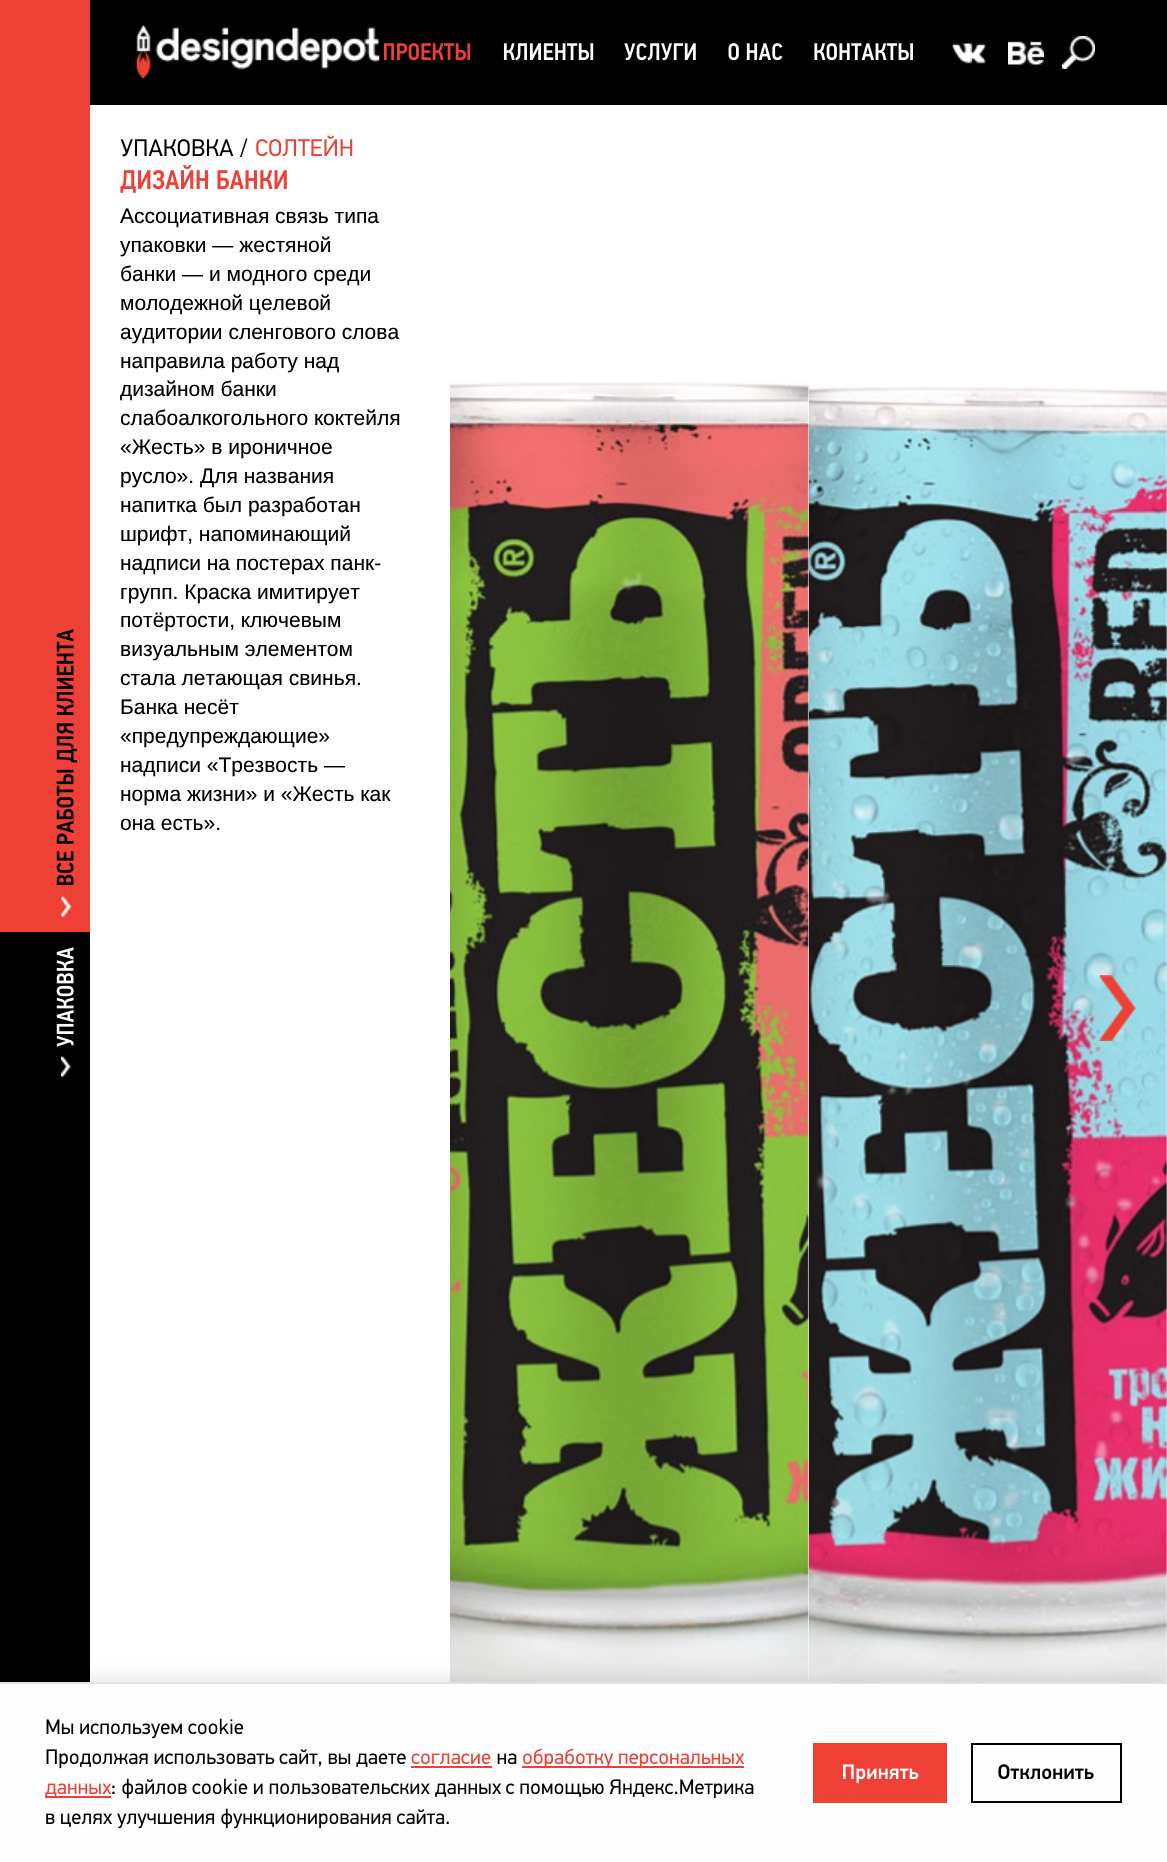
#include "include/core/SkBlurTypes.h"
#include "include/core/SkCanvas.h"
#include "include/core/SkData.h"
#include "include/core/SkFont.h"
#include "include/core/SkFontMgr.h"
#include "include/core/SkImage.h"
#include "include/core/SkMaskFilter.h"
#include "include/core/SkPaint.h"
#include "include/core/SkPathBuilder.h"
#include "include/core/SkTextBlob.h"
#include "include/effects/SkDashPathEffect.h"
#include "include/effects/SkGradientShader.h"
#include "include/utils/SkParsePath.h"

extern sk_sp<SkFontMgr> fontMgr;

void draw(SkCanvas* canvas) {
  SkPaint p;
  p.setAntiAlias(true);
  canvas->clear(SK_ColorWHITE);
  p.setColor(SkColorSetRGB(239, 64, 53));
  canvas->drawRect(SkRect::MakeLTRB(0, 0, 90, 932), p);
  canvas->drawImageRect(SkImages::DeferredFromEncodedData(SkData::MakeFromFileName("images/1.png")), SkRect::MakeLTRB(56, 629, 77, 885), SkSamplingOptions());
  canvas->drawImageRect(SkImages::DeferredFromEncodedData(SkData::MakeFromFileName("images/2.png")), SkRect::MakeLTRB(61, 896, 72, 917), SkSamplingOptions());
  p.setColor(SkColorSetRGB(1, 1, 1));
  canvas->drawRect(SkRect::MakeLTRB(0, 932, 90, 1682), p);
  canvas->drawImageRect(SkImages::DeferredFromEncodedData(SkData::MakeFromFileName("images/3.png")), SkRect::MakeLTRB(56, 947, 74, 1047), SkSamplingOptions());
  canvas->drawImageRect(SkImages::DeferredFromEncodedData(SkData::MakeFromFileName("images/4.png")), SkRect::MakeLTRB(60, 1056, 72, 1077), SkSamplingOptions());
  canvas->drawRect(SkRect::MakeLTRB(90, 0, 1167, 105), p);
  canvas->drawImageRect(SkImages::DeferredFromEncodedData(SkData::MakeFromFileName("images/5.png")), SkRect::MakeLTRB(136, 25, 380, 78), SkSamplingOptions());
  canvas->drawImageRect(SkImages::DeferredFromEncodedData(SkData::MakeFromFileName("images/6.png")), SkRect::MakeLTRB(384, 43, 471, 61), SkSamplingOptions());
  canvas->drawImageRect(SkImages::DeferredFromEncodedData(SkData::MakeFromFileName("images/7.png")), SkRect::MakeLTRB(503, 43, 594, 61), SkSamplingOptions());
  canvas->drawImageRect(SkImages::DeferredFromEncodedData(SkData::MakeFromFileName("images/8.png")), SkRect::MakeLTRB(624, 43, 696, 61), SkSamplingOptions());
  canvas->drawImageRect(SkImages::DeferredFromEncodedData(SkData::MakeFromFileName("images/9.png")), SkRect::MakeLTRB(728, 43, 783, 61), SkSamplingOptions());
  canvas->drawImageRect(SkImages::DeferredFromEncodedData(SkData::MakeFromFileName("images/10.png")), SkRect::MakeLTRB(814, 43, 913, 61), SkSamplingOptions());
  canvas->drawImageRect(SkImages::DeferredFromEncodedData(SkData::MakeFromFileName("images/11.png")), SkRect::MakeLTRB(952, 43, 986, 64), SkSamplingOptions());
  canvas->drawImageRect(SkImages::DeferredFromEncodedData(SkData::MakeFromFileName("images/12.png")), SkRect::MakeLTRB(1008, 41, 1044, 65), SkSamplingOptions());
  canvas->drawImageRect(SkImages::DeferredFromEncodedData(SkData::MakeFromFileName("images/13.png")), SkRect::MakeLTRB(1062, 36, 1095, 69), SkSamplingOptions());
  canvas->drawImageRect(SkImages::DeferredFromEncodedData(SkData::MakeFromFileName("images/14.png")), SkRect::MakeLTRB(120, 139, 234, 157), SkSamplingOptions());
  canvas->drawPath(SkPathBuilder().moveTo(241.5f, 157).lineTo(240, 157).lineTo(246, 138.5f).lineTo(247.5f, 138.5f).close().detach(), p);
  canvas->drawImageRect(SkImages::DeferredFromEncodedData(SkData::MakeFromFileName("images/15.png")), SkRect::MakeLTRB(256, 135, 353, 157), SkSamplingOptions());
  canvas->drawImageRect(SkImages::DeferredFromEncodedData(SkData::MakeFromFileName("images/16.png")), SkRect::MakeLTRB(120, 165, 287, 193), SkSamplingOptions());
  canvas->drawImageRect(SkImages::DeferredFromEncodedData(SkData::MakeFromFileName("images/17.png")), SkRect::MakeLTRB(450, 381, 809, 1682), SkSamplingOptions());
  canvas->drawImageRect(SkImages::DeferredFromEncodedData(SkData::MakeFromFileName("images/18.png")), SkRect::MakeLTRB(809, 386, 1167, 1682), SkSamplingOptions());
  canvas->drawImageRect(SkImages::DeferredFromEncodedData(SkData::MakeFromFileName("images/19.png")), SkRect::MakeLTRB(1099, 975, 1136, 1041), SkSamplingOptions());
  p.setColor(SkColorSetARGB(26, 0, 0, 0));
  p.setMaskFilter(SkMaskFilter::MakeBlur(kNormal_SkBlurStyle, 7.5f));
  canvas->drawRect(SkRect::MakeLTRB(0, 1679, 1167, 1860), p);
  p.setMaskFilter(nullptr);
  p.setColor(SkColorSetRGB(254, 254, 254));
  canvas->drawRect(SkRect::MakeLTRB(0, 1684, 1167, 1862), p);
  p.setColor(SkColorSetRGB(224, 224, 224));
  canvas->drawRect(SkRect::MakeLTRB(0, 1682, 1167, 1684), p);
  canvas->drawImageRect(SkImages::DeferredFromEncodedData(SkData::MakeFromFileName("images/20.png")), SkRect::MakeLTRB(46, 1718, 244, 1739), SkSamplingOptions());
  canvas->drawImageRect(SkImages::DeferredFromEncodedData(SkData::MakeFromFileName("images/21.png")), SkRect::MakeLTRB(46, 1749, 406, 1769), SkSamplingOptions());
  canvas->drawImageRect(SkImages::DeferredFromEncodedData(SkData::MakeFromFileName("images/22.png")), SkRect::MakeLTRB(411, 1753, 491, 1765), SkSamplingOptions());
  canvas->drawImageRect(SkImages::DeferredFromEncodedData(SkData::MakeFromFileName("images/23.png")), SkRect::MakeLTRB(497, 1753, 517, 1765), SkSamplingOptions());
  p.setColor(SkColorSetRGB(239, 64, 53));
  canvas->drawRect(SkRect::MakeLTRB(522, 1766, 744, 1768), p);
  canvas->drawImageRect(SkImages::DeferredFromEncodedData(SkData::MakeFromFileName("images/24.png")), SkRect::MakeLTRB(523, 1748, 745, 1769), SkSamplingOptions());
  canvas->drawRect(SkRect::MakeLTRB(411, 1766, 492, 1768), p);
  canvas->drawImageRect(SkImages::DeferredFromEncodedData(SkData::MakeFromFileName("images/25.png")), SkRect::MakeLTRB(45, 1783, 112, 1796), SkSamplingOptions());
  canvas->drawImageRect(SkImages::DeferredFromEncodedData(SkData::MakeFromFileName("images/26.png")), SkRect::MakeLTRB(112, 1785, 115, 1794), SkSamplingOptions());
  canvas->drawImageRect(SkImages::DeferredFromEncodedData(SkData::MakeFromFileName("images/27.png")), SkRect::MakeLTRB(122, 1778, 502, 1799), SkSamplingOptions());
  canvas->drawImageRect(SkImages::DeferredFromEncodedData(SkData::MakeFromFileName("images/28.png")), SkRect::MakeLTRB(506, 1779, 754, 1799), SkSamplingOptions());
  canvas->drawRect(SkRect::MakeLTRB(45, 1796, 111, 1798), p);
  canvas->drawImageRect(SkImages::DeferredFromEncodedData(SkData::MakeFromFileName("images/29.png")), SkRect::MakeLTRB(46, 1813, 215, 1829), SkSamplingOptions());
  canvas->drawImageRect(SkImages::DeferredFromEncodedData(SkData::MakeFromFileName("images/30.png")), SkRect::MakeLTRB(221, 1808, 449, 1829), SkSamplingOptions());
  canvas->drawRect(SkRect::MakeLTRB(813, 1743, 947, 1803), p);
  canvas->drawImageRect(SkImages::DeferredFromEncodedData(SkData::MakeFromFileName("images/31.png")), SkRect::MakeLTRB(843, 1764, 919, 1784), SkSamplingOptions());
  p.setStyle(SkPaint::kStroke_Style);
  p.setStrokeWidth(2);
  p.setColor(SkColorSetRGB(1, 1, 1));
  canvas->drawRect(SkRect::MakeLTRB(972, 1744, 1121, 1802), p);
  canvas->drawImageRect(SkImages::DeferredFromEncodedData(SkData::MakeFromFileName("images/32.png")), SkRect::MakeLTRB(998, 1764, 1094, 1780), SkSamplingOptions());
  SkFont font1(fontMgr->matchFamilyStyle("Liberation Sans", SkFontStyle::Normal()), 21);
  font1.setSubpixel(true);
  p.setStyle(SkPaint::kFill_Style);
  canvas->drawString("Ассоциативная связь типа", 120, 223, font1, p);
  canvas->drawString("упаковки — жестяной", 120, 252, font1, p);
  canvas->drawString("банки — и модного среди", 120, 281, font1, p);
  canvas->drawString("молодежной целевой", 120, 310, font1, p);
  canvas->drawString("аудитории сленгового слова", 120, 339, font1, p);
  canvas->drawString("направила работу над", 120, 368, font1, p);
  canvas->drawString("дизайном банки", 120, 396, font1, p);
  canvas->drawString("слабоалкогольного коктейля", 120, 425, font1, p);
  canvas->drawString("«Жесть» в ироничное", 120, 454, font1, p);
  canvas->drawString("русло». Для названия", 120, 483, font1, p);
  canvas->drawString("напитка был разработан", 120, 512, font1, p);
  canvas->drawString("шрифт, напоминающий", 120, 541, font1, p);
  canvas->drawString("надписи на постерах панк-", 120, 570, font1, p);
  canvas->drawString("групп. Краска имитирует", 120, 599, font1, p);
  canvas->drawString("потёртости, ключевым", 120, 627, font1, p);
  canvas->drawString("визуальным элементом", 120, 656, font1, p);
  canvas->drawString("стала летающая свинья.", 120, 685, font1, p);
  canvas->drawString("Банка несёт", 120, 714, font1, p);
  canvas->drawString("«предупреждающие»", 120, 743, font1, p);
  canvas->drawString("надписи «Трезвость —", 120, 772, font1, p);
  canvas->drawString("норма жизни» и «Жесть как", 120, 801, font1, p);
  canvas->drawString("она есть».", 120, 830, font1, p);
}
